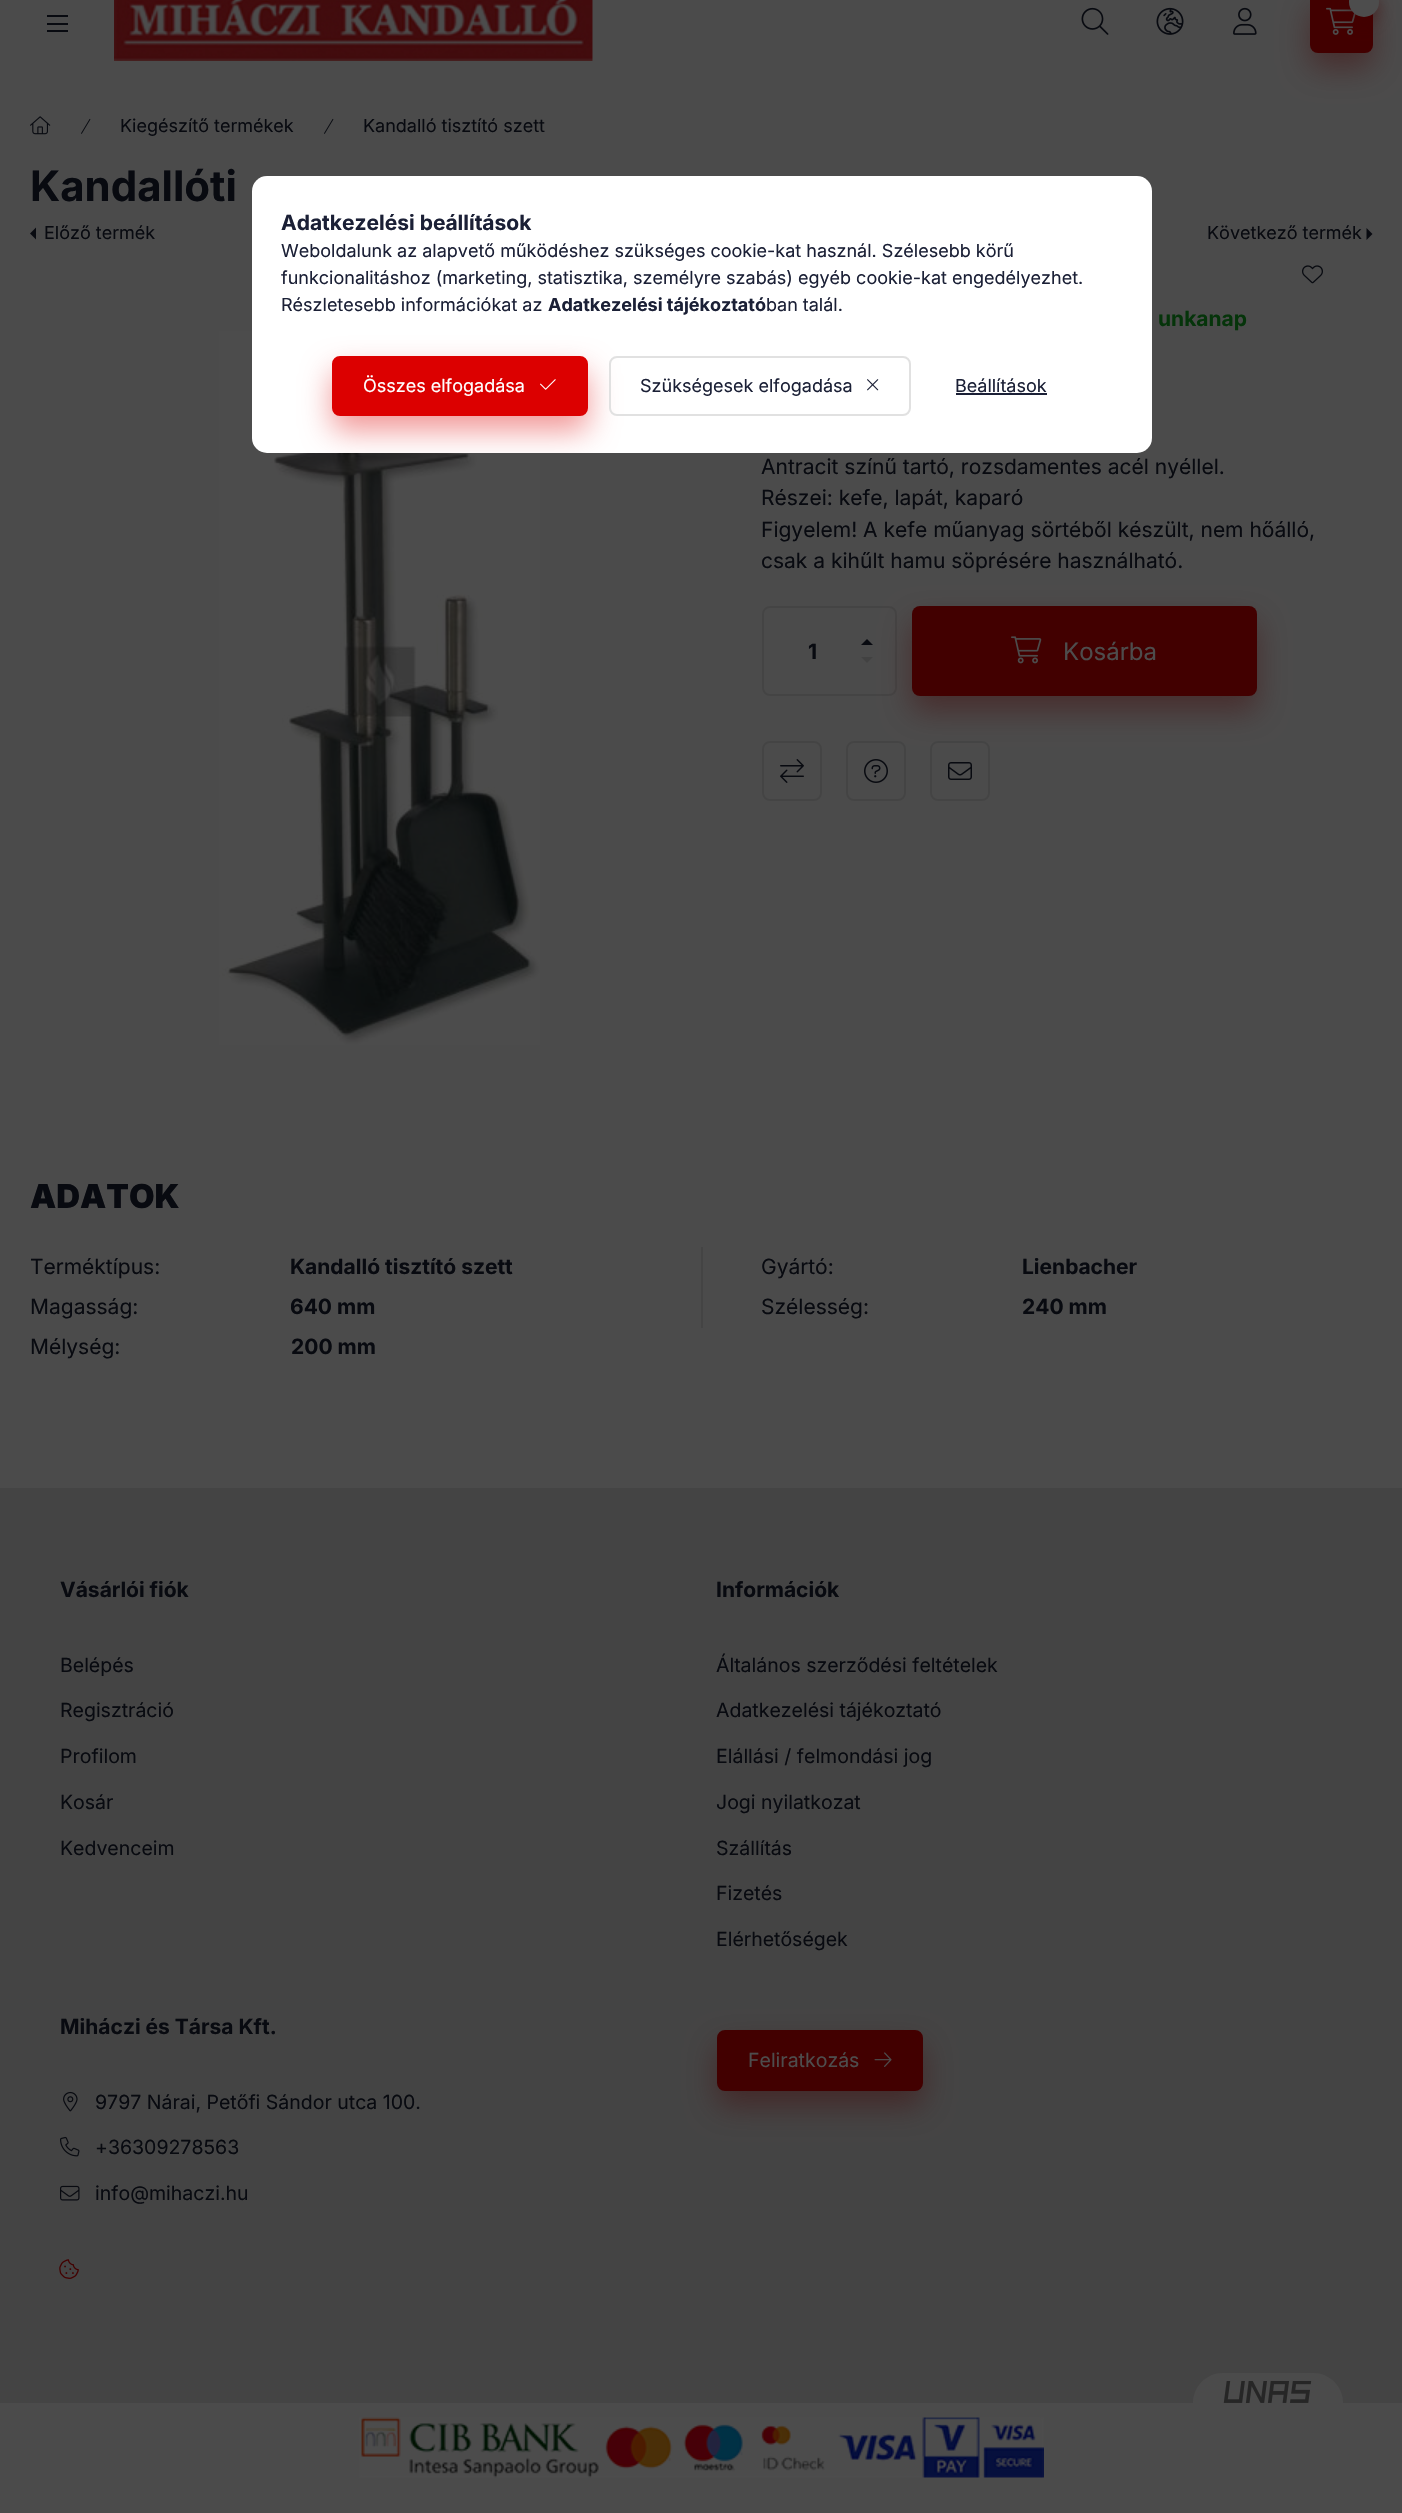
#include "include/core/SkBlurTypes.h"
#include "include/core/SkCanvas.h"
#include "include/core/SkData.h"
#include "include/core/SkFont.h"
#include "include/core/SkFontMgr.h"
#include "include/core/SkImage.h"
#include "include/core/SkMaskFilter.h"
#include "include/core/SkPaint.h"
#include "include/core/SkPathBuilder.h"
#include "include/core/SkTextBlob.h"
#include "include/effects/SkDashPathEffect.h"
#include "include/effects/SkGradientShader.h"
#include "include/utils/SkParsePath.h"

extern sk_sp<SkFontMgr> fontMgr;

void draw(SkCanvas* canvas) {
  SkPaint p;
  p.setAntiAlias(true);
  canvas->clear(SkColorSetRGB(75, 75, 75));
  p.setColor(SkColorSetRGB(8, 10, 16));
  canvas->drawRect(SkRect::MakeLTRB(47, 15, 68, 17), p);
  canvas->drawRect(SkRect::MakeLTRB(47, 23, 68, 25), p);
  canvas->drawRect(SkRect::MakeLTRB(47, 30, 68, 32), p);
  canvas->drawImageRect(SkImages::DeferredFromEncodedData(SkData::MakeFromFileName("images/1.png")), SkRect::MakeLTRB(114, 0, 593, 61), SkSamplingOptions());
  canvas->drawImageRect(SkImages::DeferredFromEncodedData(SkData::MakeFromFileName("images/2.png")), SkRect::MakeLTRB(1081, 7, 1109, 35), SkSamplingOptions());
  canvas->drawImageRect(SkImages::DeferredFromEncodedData(SkData::MakeFromFileName("images/3.png")), SkRect::MakeLTRB(1156, 7, 1184, 35), SkSamplingOptions());
  canvas->drawImageRect(SkImages::DeferredFromEncodedData(SkData::MakeFromFileName("images/4.png")), SkRect::MakeLTRB(1233, 7, 1257, 35), SkSamplingOptions());
  p.setColor(SkColorSetARGB(102, 66, 0, 0));
  p.setMaskFilter(SkMaskFilter::MakeBlur(kNormal_SkBlurStyle, 15));
  canvas->drawRoundRect(SkRect::MakeLTRB(1310, 8, 1373, 68), 8, 8, p);
  p.setMaskFilter(nullptr);
  p.setColor(SkColorSetRGB(66, 0, 0));
  canvas->drawRoundRect(SkRect::MakeLTRB(1310, -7, 1373, 53), 8, 8, p);
  canvas->drawImageRect(SkImages::DeferredFromEncodedData(SkData::MakeFromFileName("images/5.png")), SkRect::MakeLTRB(1326, 7, 1356, 35), SkSamplingOptions());
  p.setColor(SkColorSetARGB(102, 66, 0, 0));
  p.setMaskFilter(SkMaskFilter::MakeBlur(kNormal_SkBlurStyle, 7.5f));
  canvas->drawRoundRect(SkRect::MakeLTRB(1349, -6, 1379, 24), 15, 15, p);
  p.setMaskFilter(nullptr);
  p.setColor(SkColorSetRGB(77, 77, 77));
  canvas->drawCircle(1364, 2, 15, p);
  canvas->drawImageRect(SkImages::DeferredFromEncodedData(SkData::MakeFromFileName("images/6.png")), SkRect::MakeLTRB(30, 116, 51, 135), SkSamplingOptions());
  canvas->drawImageRect(SkImages::DeferredFromEncodedData(SkData::MakeFromFileName("images/7.png")), SkRect::MakeLTRB(81, 118, 91, 134), SkSamplingOptions());
  canvas->drawImageRect(SkImages::DeferredFromEncodedData(SkData::MakeFromFileName("images/7.png")), SkRect::MakeLTRB(324, 118, 334, 134), SkSamplingOptions());
  p.setColor(SkColorSetRGB(8, 10, 16));
  canvas->drawPath(SkPathBuilder().moveTo(36, 239.5f).lineTo(36, 227.5f).lineTo(30, 233.5f).close().detach(), p);
  canvas->drawPath(SkPathBuilder().moveTo(1366.5f, 240).lineTo(1366.5f, 228).lineTo(1372.5f, 234).close().detach(), p);
  canvas->drawImageRect(SkImages::DeferredFromEncodedData(SkData::MakeFromFileName("images/8.png")), SkRect::MakeLTRB(1302, 265, 1323, 284), SkSamplingOptions());
  canvas->drawImageRect(SkImages::DeferredFromEncodedData(SkData::MakeFromFileName("images/9.png")), SkRect::MakeLTRB(219, 331, 540, 1045), SkSamplingOptions());
  p.setStyle(SkPaint::kStroke_Style);
  p.setStrokeWidth(2);
  p.setColor(SkColorSetRGB(68, 68, 68));
  canvas->drawRoundRect(SkRect::MakeLTRB(763, 607, 896, 695), 7, 7, p);
  p.setStyle(SkPaint::kFill_Style);
  p.setColor(SkColorSetRGB(8, 10, 16));
  canvas->drawPath(SkPathBuilder().moveTo(873, 645).lineTo(861, 645).lineTo(867, 639).close().detach(), p);
  p.setColor(SkColorSetRGB(66, 66, 66));
  canvas->drawPath(SkPathBuilder().moveTo(861, 657).lineTo(873, 657).lineTo(867, 663).close().detach(), p);
  p.setColor(SkColorSetARGB(102, 66, 0, 0));
  p.setMaskFilter(SkMaskFilter::MakeBlur(kNormal_SkBlurStyle, 15));
  canvas->drawRoundRect(SkRect::MakeLTRB(912, 621, 1257, 711), 8, 8, p);
  p.setMaskFilter(nullptr);
  p.setColor(SkColorSetRGB(66, 0, 0));
  canvas->drawRoundRect(SkRect::MakeLTRB(912, 606, 1257, 696), 8, 8, p);
  canvas->drawImageRect(SkImages::DeferredFromEncodedData(SkData::MakeFromFileName("images/10.png")), SkRect::MakeLTRB(1011, 636, 1042, 664), SkSamplingOptions());
  p.setStyle(SkPaint::kStroke_Style);
  p.setColor(SkColorSetRGB(68, 68, 68));
  canvas->drawRoundRect(SkRect::MakeLTRB(763, 742, 821, 800), 7, 7, p);
  canvas->drawImageRect(SkImages::DeferredFromEncodedData(SkData::MakeFromFileName("images/11.png")), SkRect::MakeLTRB(780, 759, 804, 783), SkSamplingOptions());
  canvas->drawRoundRect(SkRect::MakeLTRB(847, 742, 905, 800), 7, 7, p);
  canvas->drawImageRect(SkImages::DeferredFromEncodedData(SkData::MakeFromFileName("images/12.png")), SkRect::MakeLTRB(864, 759, 888, 783), SkSamplingOptions());
  canvas->drawRoundRect(SkRect::MakeLTRB(931, 742, 989, 800), 7, 7, p);
  canvas->drawImageRect(SkImages::DeferredFromEncodedData(SkData::MakeFromFileName("images/13.png")), SkRect::MakeLTRB(948, 762, 972, 780), SkSamplingOptions());
  p.setStyle(SkPaint::kFill_Style);
  canvas->drawRect(SkRect::MakeLTRB(701, 1247, 703, 1328), p);
  canvas->drawRect(SkRect::MakeLTRB(0, 1488, 1402, 2403), p);
  canvas->drawImageRect(SkImages::DeferredFromEncodedData(SkData::MakeFromFileName("images/14.png")), SkRect::MakeLTRB(63, 2091, 78, 2112), SkSamplingOptions());
  canvas->drawImageRect(SkImages::DeferredFromEncodedData(SkData::MakeFromFileName("images/15.png")), SkRect::MakeLTRB(60, 2136, 80, 2157), SkSamplingOptions());
  canvas->drawImageRect(SkImages::DeferredFromEncodedData(SkData::MakeFromFileName("images/16.png")), SkRect::MakeLTRB(60, 2185, 80, 2201), SkSamplingOptions());
  canvas->drawImageRect(SkImages::DeferredFromEncodedData(SkData::MakeFromFileName("images/17.png")), SkRect::MakeLTRB(59, 2259, 79, 2279), SkSamplingOptions());
  p.setColor(SkColorSetARGB(102, 66, 0, 0));
  p.setMaskFilter(SkMaskFilter::MakeBlur(kNormal_SkBlurStyle, 15));
  canvas->drawRoundRect(SkRect::MakeLTRB(717, 2045, 923, 2106), 8, 8, p);
  p.setMaskFilter(nullptr);
  p.setColor(SkColorSetRGB(66, 0, 0));
  canvas->drawRoundRect(SkRect::MakeLTRB(718, 2031, 922, 2090), 7, 7, p);
  p.setStyle(SkPaint::kStroke_Style);
  canvas->drawRoundRect(SkRect::MakeLTRB(718, 2031, 922, 2090), 7, 7, p);
  canvas->drawImageRect(SkImages::DeferredFromEncodedData(SkData::MakeFromFileName("images/18.png")), SkRect::MakeLTRB(874, 2052, 892, 2067), SkSamplingOptions());
  p.setStyle(SkPaint::kFill_Style);
  p.setColor(SkColorSetRGB(75, 75, 75));
  canvas->drawPath(SkPathBuilder().moveTo(1223, 2373).lineTo(1313, 2373).cubicTo(1329.5f, 2373, 1343, 2386.5f, 1343, 2403).lineTo(1193, 2403).cubicTo(1193, 2386.5f, 1206.5f, 2373, 1223, 2373).close().detach(), p);
  canvas->drawImageRect(SkImages::DeferredFromEncodedData(SkData::MakeFromFileName("images/19.png")), SkRect::MakeLTRB(1223, 2381, 1312, 2403), SkSamplingOptions());
  canvas->drawImageRect(SkImages::DeferredFromEncodedData(SkData::MakeFromFileName("images/20.png")), SkRect::MakeLTRB(359, 2417, 1044, 2478), SkSamplingOptions());
  p.setColor(SK_ColorWHITE);
  canvas->drawRoundRect(SkRect::MakeLTRB(252, 176, 1152, 453), 15, 15, p);
  canvas->save();
  canvas->clipPath(SkPathBuilder().moveTo(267, 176).lineTo(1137, 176).cubicTo(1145.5f, 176, 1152, 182.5f, 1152, 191).lineTo(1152, 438).cubicTo(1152, 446.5f, 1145.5f, 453, 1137, 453).lineTo(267, 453).cubicTo(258.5f, 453, 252, 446.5f, 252, 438).lineTo(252, 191).cubicTo(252, 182.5f, 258.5f, 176, 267, 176).close().detach(), true);
  p.setColor(SkColorSetARGB(102, 220, 0, 0));
  p.setMaskFilter(SkMaskFilter::MakeBlur(kNormal_SkBlurStyle, 15));
  canvas->drawRoundRect(SkRect::MakeLTRB(332, 371, 588, 431), 8, 8, p);
  p.setMaskFilter(nullptr);
  canvas->restore();
  p.setColor(SkColorSetRGB(220, 0, 0));
  canvas->drawRoundRect(SkRect::MakeLTRB(333, 357, 587, 415), 7, 7, p);
  p.setStyle(SkPaint::kStroke_Style);
  canvas->drawRoundRect(SkRect::MakeLTRB(333, 357, 587, 415), 7, 7, p);
  canvas->drawImageRect(SkImages::DeferredFromEncodedData(SkData::MakeFromFileName("images/21.png")), SkRect::MakeLTRB(540, 379, 556, 390), SkSamplingOptions());
  p.setColor(SkColorSetRGB(225, 225, 225));
  canvas->drawRoundRect(SkRect::MakeLTRB(610, 357, 910, 415), 7, 7, p);
  canvas->drawImageRect(SkImages::DeferredFromEncodedData(SkData::MakeFromFileName("images/22.png")), SkRect::MakeLTRB(867, 379, 879, 391), SkSamplingOptions());
  p.setStyle(SkPaint::kFill_Style);
  p.setColor(SkColorSetRGB(27, 32, 54));
  canvas->drawRect(SkRect::MakeLTRB(956, 393, 1047, 395), p);
  SkFont font1(fontMgr->matchFamilyStyle("Inter", SkFontStyle::Normal()), 18);
  font1.setSubpixel(true);
  p.setColor(SkColorSetRGB(8, 10, 16));
  canvas->drawString("Kiegészítő termékek", 120, 132, font1, p);
  canvas->drawString("Kandalló tisztító szett", 363, 132, font1, p);
  SkFont font2(fontMgr->matchFamilyStyle("Inter", SkFontStyle::Bold()), 42);
  font2.setSubpixel(true);
  canvas->drawString("Kandallóti", 30, 201, font2, p);
  canvas->drawString("Előző termék", 44, 239, font1, p);
  canvas->drawString("Következő termék", 1207, 239, font1, p);
  SkFont font3(fontMgr->matchFamilyStyle("Inter", SkFontStyle::Bold()), 21);
  font3.setSubpixel(true);
  p.setColor(SkColorSetRGB(5, 52, 10));
  canvas->drawString("unkanap", 1158, 326, font3, p);
  SkFont font4(fontMgr->matchFamilyStyle("Inter", SkFontStyle::Normal()), 21);
  font4.setSubpixel(true);
  p.setColor(SkColorSetRGB(8, 10, 16));
  canvas->drawString("Antracit színű tartó, rozsdamentes acél nyéllel.", 761, 474, font4, p);
  canvas->drawString("Részei: kefe, lapát, kaparó", 761, 505, font4, p);
  canvas->drawString("Figyelem! A kefe műanyag sörtéből készült, nem hőálló,", 761, 537, font4, p);
  canvas->drawString("csak a kihűlt hamu söprésére használható.", 761, 568, font4, p);
  canvas->drawString("1", 808, 659, font3, p);
  SkFont font5(fontMgr->matchFamilyStyle("Inter", SkFontStyle::Normal()), 24);
  font5.setSubpixel(true);
  p.setColor(SkColorSetRGB(77, 77, 77));
  canvas->drawString("Kosárba", 1063, 660, font5, p);
  SkFont font6(fontMgr->matchFamilyStyle("Inter", SkFontStyle(900, SkFontStyle::kNormal_Width, SkFontStyle::kUpright_Slant)), 33);
  font6.setSubpixel(true);
  p.setColor(SkColorSetRGB(8, 10, 16));
  canvas->drawString("ADATOK", 30, 1208, font6, p);
  canvas->drawString("Terméktípus:", 30, 1274, font4, p);
  canvas->drawString("Kandalló tisztító szett", 290, 1274, font3, p);
  canvas->drawString("Gyártó:", 761, 1274, font4, p);
  canvas->drawString("Lienbacher", 1022, 1274, font3, p);
  canvas->drawString("Magasság:", 30, 1314, font4, p);
  canvas->drawString("640 mm", 290, 1314, font3, p);
  canvas->drawString("Szélesség:", 761, 1314, font4, p);
  canvas->drawString("240 mm", 1022, 1314, font3, p);
  canvas->drawString("Mélység:", 30, 1354, font4, p);
  canvas->drawString("200 mm", 291, 1354, font3, p);
  canvas->drawString("Vásárlói fiók", 60, 1597, font3, p);
  SkFont font7(fontMgr->matchFamilyStyle("Inter", SkFontStyle::Normal()), 19.5f);
  font7.setSubpixel(true);
  canvas->drawString("Belépés", 60, 1672, font7, p);
  canvas->drawString("Regisztráció", 60, 1717, font7, p);
  canvas->drawString("Profilom", 60, 1763, font7, p);
  canvas->drawString("Kosár", 60, 1809, font7, p);
  canvas->drawString("Kedvenceim", 60, 1855, font7, p);
  canvas->drawString("Információk", 716, 1597, font3, p);
  canvas->drawString("Általános szerződési feltételek", 716, 1672, font7, p);
  canvas->drawString("Adatkezelési tájékoztató", 716, 1717, font7, p);
  canvas->drawString("Elállási / felmondási jog", 716, 1763, font7, p);
  canvas->drawString("Jogi nyilatkozat", 716, 1809, font7, p);
  canvas->drawString("Szállítás", 716, 1855, font7, p);
  canvas->drawString("Fizetés", 716, 1900, font7, p);
  canvas->drawString("Elérhetőségek", 716, 1946, font7, p);
  canvas->drawString("Miháczi és Társa Kft.", 60, 2034, font3, p);
  canvas->drawString("9797 Nárai, Petőfi Sándor utca 100.", 95, 2109, font7, p);
  canvas->drawString("+36309278563", 95, 2154, font7, p);
  canvas->drawString("info@mihaczi.hu", 95, 2200, font7, p);
  p.setColor(SkColorSetRGB(77, 77, 77));
  canvas->drawString("Feliratkozás", 748, 2067, font7, p);
  p.setColor(SkColorSetRGB(27, 32, 54));
  canvas->drawString("Adatkezelési beállítások", 281, 230, font3, p);
  canvas->drawString("Weboldalunk az alapvető működéshez szükséges cookie-kat használ. Szélesebb körű", 281, 257, font1, p);
  canvas->drawString("funkcionalitáshoz (marketing, statisztika, személyre szabás) egyéb cookie-kat engedélyezhet.", 281, 284, font1, p);
  canvas->drawString("Részletesebb információkat az", 281, 311, font1, p);
  SkFont font8(fontMgr->matchFamilyStyle("Inter", SkFontStyle::Bold()), 18);
  font8.setSubpixel(true);
  canvas->drawString("Adatkezelési tájékoztató", 548, 311, font8, p);
  canvas->drawString("ban talál.", 766, 311, font1, p);
  p.setColor(SK_ColorWHITE);
  canvas->drawString("Összes elfogadása", 363, 392, font1, p);
  p.setColor(SkColorSetRGB(27, 32, 54));
  canvas->drawString("Szükségesek elfogadása", 640, 392, font1, p);
  canvas->drawString("Beállítások", 955, 392, font1, p);
}
